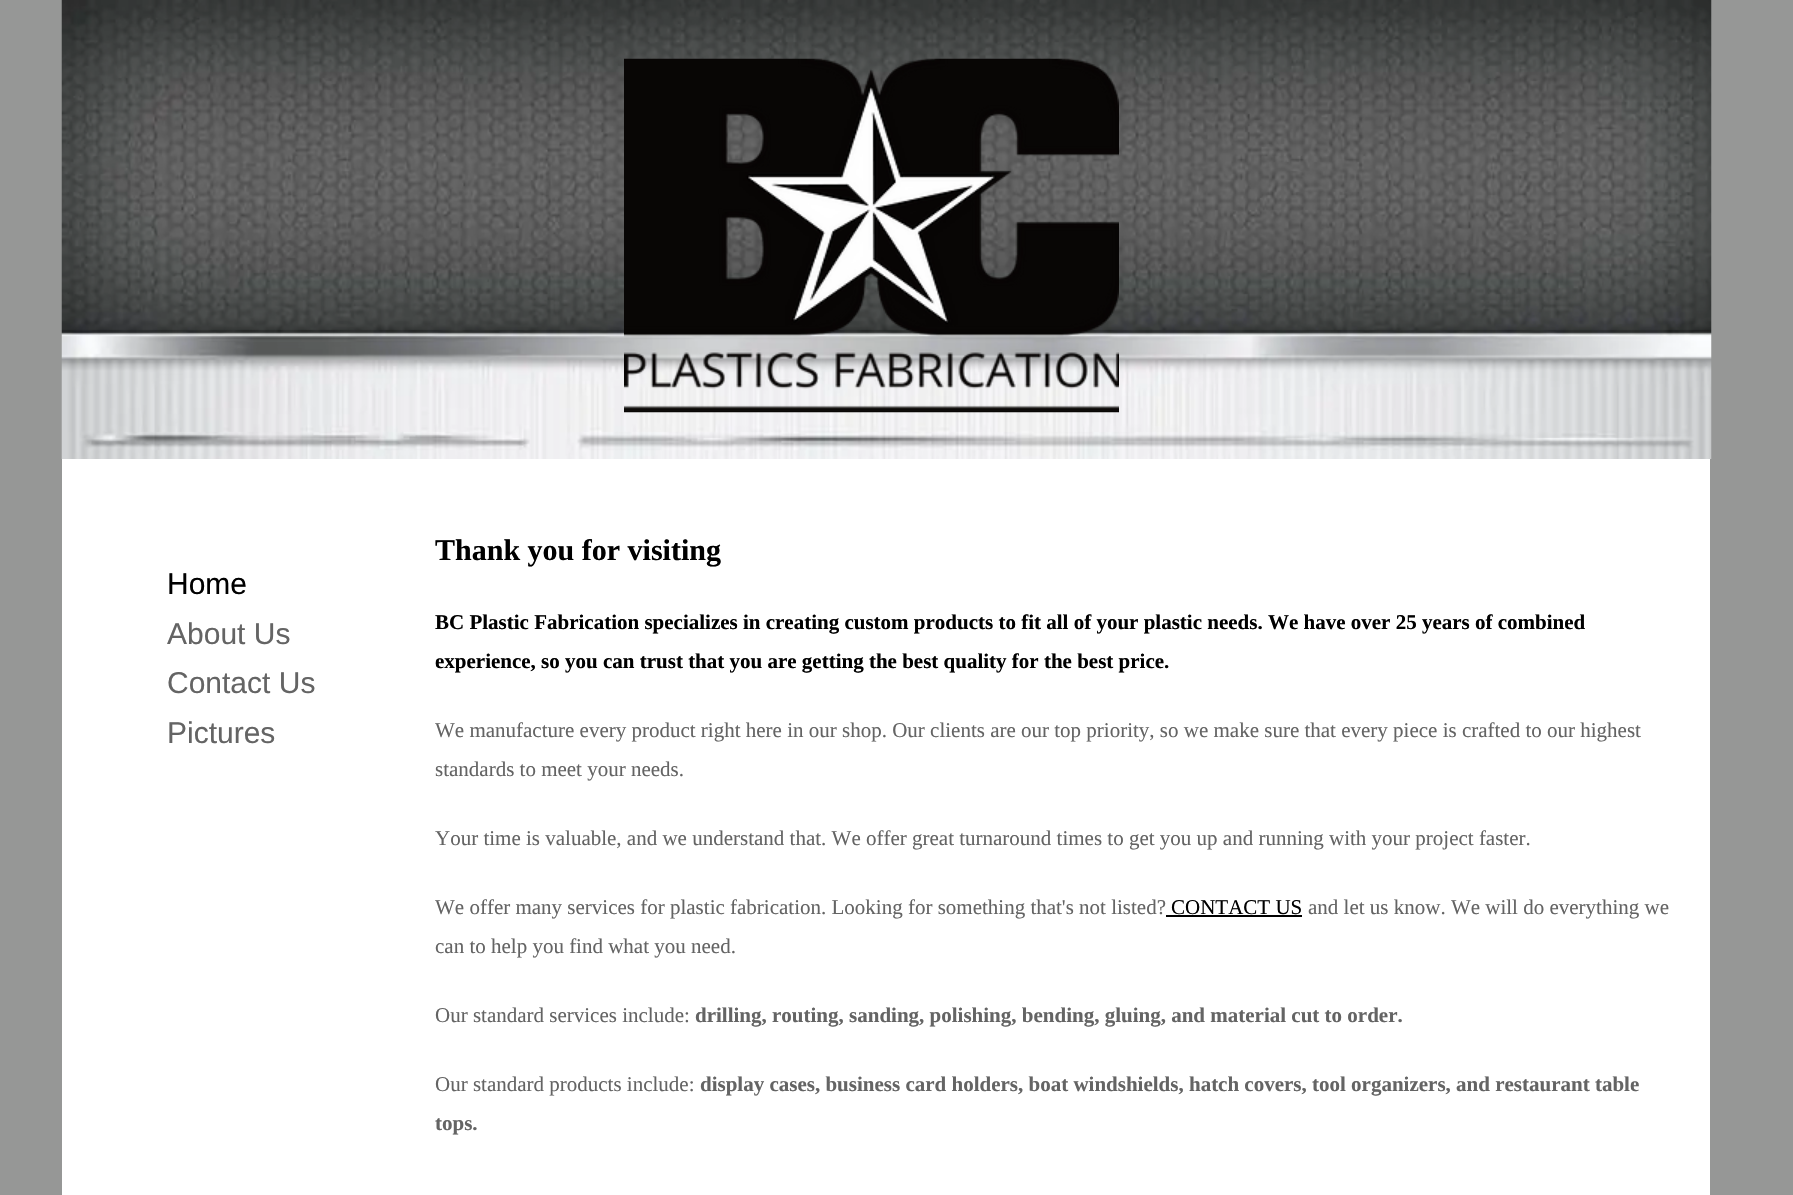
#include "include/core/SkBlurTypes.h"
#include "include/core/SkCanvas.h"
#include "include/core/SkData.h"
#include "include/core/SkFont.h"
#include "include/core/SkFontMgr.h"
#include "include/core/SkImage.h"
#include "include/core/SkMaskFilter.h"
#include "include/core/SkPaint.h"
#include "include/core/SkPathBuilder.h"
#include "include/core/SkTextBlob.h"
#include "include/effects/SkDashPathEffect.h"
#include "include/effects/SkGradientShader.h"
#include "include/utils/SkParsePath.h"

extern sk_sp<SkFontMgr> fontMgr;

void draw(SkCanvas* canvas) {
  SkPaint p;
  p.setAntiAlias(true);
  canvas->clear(SkColorSetRGB(150, 151, 150));
  canvas->drawImageRect(SkImages::DeferredFromEncodedData(SkData::MakeFromFileName("images/1.png")), SkRect::MakeLTRB(61, 0, 1712, 459), SkSamplingOptions());
  canvas->drawImageRect(SkImages::DeferredFromEncodedData(SkData::MakeFromFileName("images/2.png")), SkRect::MakeLTRB(624, 58, 1119, 413), SkSamplingOptions());
  p.setColor(SK_ColorWHITE);
  canvas->drawRect(SkRect::MakeLTRB(62, 459, 1710, 1195), p);
  p.setColor(SK_ColorBLACK);
  canvas->drawRect(SkRect::MakeLTRB(1166, 915, 1302, 917), p);
  SkFont font1(fontMgr->matchFamilyStyle("Liberation Sans", SkFontStyle::Normal()), 30);
  font1.setSubpixel(true);
  canvas->drawString("Home", 167, 594, font1, p);
  p.setColor(SkColorSetRGB(100, 100, 100));
  canvas->drawString("About Us", 167, 644, font1, p);
  canvas->drawString("Contact Us", 167, 693, font1, p);
  canvas->drawString("Pictures", 167, 743, font1, p);
  SkFont font2(fontMgr->matchFamilyStyle("Liberation Serif", SkFontStyle::Bold()), 30);
  font2.setSubpixel(true);
  p.setColor(SK_ColorBLACK);
  canvas->drawString("Thank you for visiting", 435, 560, font2, p);
  SkFont font3(fontMgr->matchFamilyStyle("Liberation Serif", SkFontStyle::Bold()), 21);
  font3.setSubpixel(true);
  canvas->drawString("BC Plastic Fabrication specializes in creating custom products to fit all of your plastic needs. We have over 25 years of combined", 435, 629, font3, p);
  canvas->drawString("experience, so you can trust that you are getting the best quality for the best price.", 435, 668, font3, p);
  SkFont font4(fontMgr->matchFamilyStyle("Liberation Serif", SkFontStyle::Normal()), 21);
  font4.setSubpixel(true);
  p.setColor(SkColorSetRGB(100, 100, 100));
  canvas->drawString("We manufacture every product right here in our shop. Our clients are our top priority, so we make sure that every piece is crafted to our highest", 435, 737, font4, p);
  canvas->drawString("standards to meet your needs.", 435, 776, font4, p);
  canvas->drawString("Your time is valuable, and we understand that. We offer great turnaround times to get you up and running with your project faster.", 435, 845, font4, p);
  canvas->drawString("We offer many services for plastic fabrication. Looking for something that's not listed?", 435, 914, font4, p);
  p.setColor(SK_ColorBLACK);
  canvas->drawString("CONTACT US", 1171, 914, font4, p);
  p.setColor(SkColorSetRGB(100, 100, 100));
  canvas->drawString("and let us know. We will do everything we", 1308, 914, font4, p);
  canvas->drawString("can to help you find what you need.", 435, 953, font4, p);
  canvas->drawString("Our standard services include:", 435, 1022, font4, p);
  canvas->drawString("drilling, routing, sanding, polishing, bending, gluing, and material cut to order.", 695, 1022, font3, p);
  canvas->drawString("Our standard products include:", 435, 1091, font4, p);
  canvas->drawString("display cases, business card holders, boat windshields, hatch covers, tool organizers, and restaurant table", 700, 1091, font3, p);
  canvas->drawString("tops.", 435, 1130, font3, p);
}
